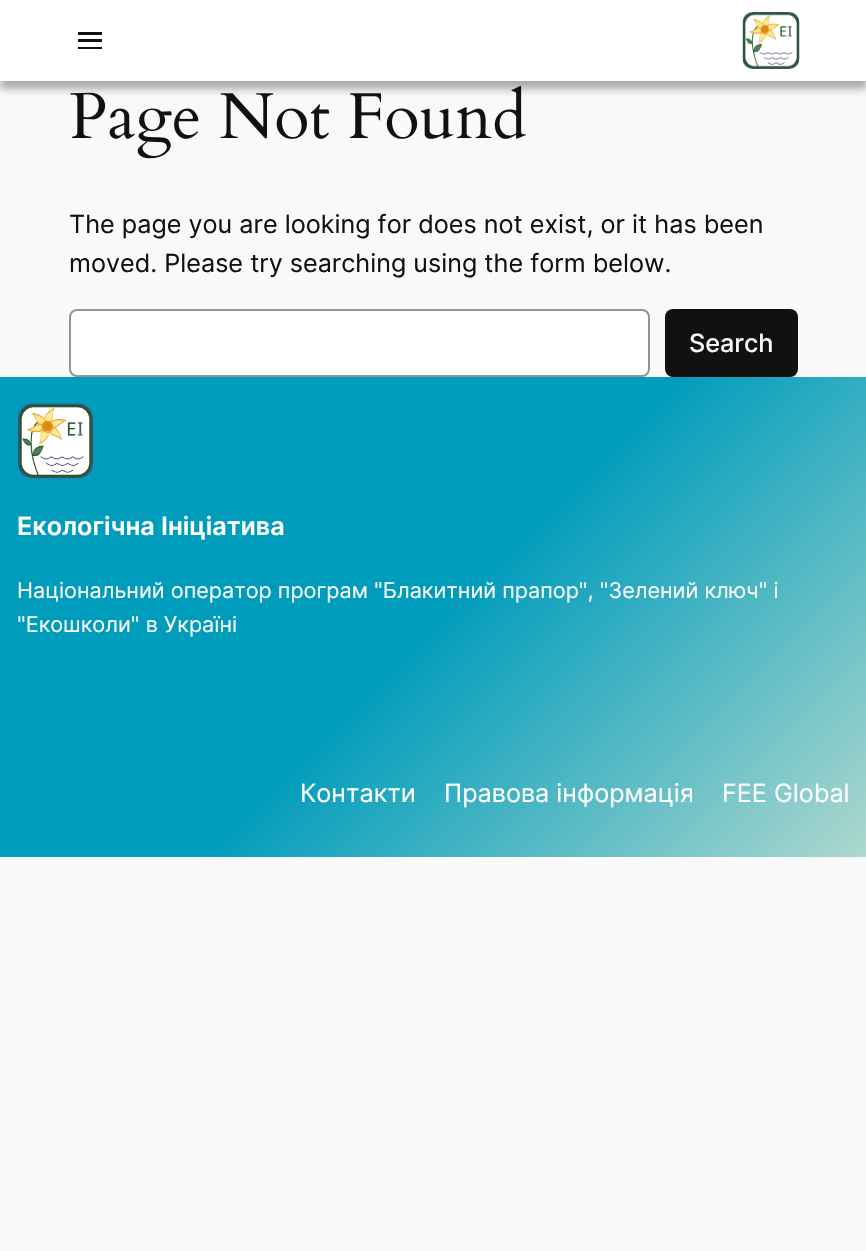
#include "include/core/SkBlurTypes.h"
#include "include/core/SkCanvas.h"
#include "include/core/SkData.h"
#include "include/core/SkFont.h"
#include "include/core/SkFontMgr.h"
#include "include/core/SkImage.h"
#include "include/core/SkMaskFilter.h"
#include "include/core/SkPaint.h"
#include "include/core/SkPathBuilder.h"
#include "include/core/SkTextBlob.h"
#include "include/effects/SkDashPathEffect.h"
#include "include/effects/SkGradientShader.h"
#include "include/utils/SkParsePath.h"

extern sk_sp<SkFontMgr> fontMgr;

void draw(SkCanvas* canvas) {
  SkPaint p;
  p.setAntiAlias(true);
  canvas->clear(SkColorSetRGB(249, 249, 249));
  p.setColor(SkColorSetRGB(170, 170, 170));
  p.setMaskFilter(SkMaskFilter::MakeBlur(kNormal_SkBlurStyle, 4));
  canvas->drawRect(SkRect::MakeLTRB(0, 8, 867, 89), p);
  p.setMaskFilter(nullptr);
  p.setColor(SK_ColorWHITE);
  canvas->drawRect(SkRect::MakeLTRB(0, 0, 866, 81), p);
  p.setColor(SkColorSetRGB(17, 17, 17));
  canvas->drawRect(SkRect::MakeLTRB(78, 32, 102, 35), p);
  canvas->drawRect(SkRect::MakeLTRB(78, 39, 102, 42), p);
  canvas->drawRect(SkRect::MakeLTRB(78, 47, 102, 49), p);
  canvas->drawImageRect(SkImages::DeferredFromEncodedData(SkData::MakeFromFileName("images/1.png")), SkRect::MakeLTRB(742, 12, 800, 69), SkSamplingOptions());
  canvas->drawImageRect(SkImages::DeferredFromEncodedData(SkData::MakeFromFileName("images/2.png")), SkRect::MakeLTRB(70, 85, 526, 159), SkSamplingOptions());
  p.setColor(SK_ColorWHITE);
  canvas->drawRoundRect(SkRect::MakeLTRB(70, 310, 649, 376), 7, 7, p);
  p.setStyle(SkPaint::kStroke_Style);
  p.setStrokeWidth(2);
  p.setColor(SkColorSetRGB(148, 148, 148));
  canvas->drawRoundRect(SkRect::MakeLTRB(70, 310, 649, 376), 7, 7, p);
  p.setStyle(SkPaint::kFill_Style);
  p.setColor(SkColorSetRGB(17, 17, 17));
  canvas->drawRoundRect(SkRect::MakeLTRB(665, 309, 798, 377), 8, 8, p);
  {
    const SkColor colors[] = {SkColorSetRGB(0, 156, 188), SkColorSetRGB(173, 216, 206)};
    const float stops[] = {0.5f, 1};
    const SkPoint ends[] = {{97, 280}, {770, 953}};
    p.setShader(SkGradientShader::MakeLinear(ends, colors, stops, 2, SkTileMode::kClamp));
    p.setAlpha(255);
  }
  canvas->drawRect(SkRect::MakeLTRB(0, 377, 866, 857), p);
  canvas->drawImageRect(SkImages::DeferredFromEncodedData(SkData::MakeFromFileName("images/3.png")), SkRect::MakeLTRB(18, 403, 93, 479), SkSamplingOptions());
  SkFont font1(fontMgr->matchFamilyStyle("Inter", SkFontStyle::Normal()), 25.2f);
  font1.setSubpixel(true);
  p.setShader(nullptr);
  p.setColor(SkColorSetRGB(17, 17, 17));
  canvas->drawString("The page you are looking for does not exist, or it has been", 69, 233, font1, p);
  canvas->drawString("moved. Please try searching using the form below.", 69, 272, font1, p);
  SkFont font2(fontMgr->matchFamilyStyle("Inter", SkFontStyle(500, SkFontStyle::kNormal_Width, SkFontStyle::kUpright_Slant)), 25.2f);
  font2.setSubpixel(true);
  p.setColor(SkColorSetRGB(249, 249, 249));
  canvas->drawString("Search", 689, 352, font2, p);
  SkFont font3(fontMgr->matchFamilyStyle("Inter", SkFontStyle(600, SkFontStyle::kNormal_Width, SkFontStyle::kUpright_Slant)), 25.2f);
  font3.setSubpixel(true);
  p.setColor(SK_ColorWHITE);
  canvas->drawString("Екологічна Ініціатива", 17, 535, font3, p);
  SkFont font4(fontMgr->matchFamilyStyle("Inter", SkFontStyle::Normal()), 21.6f);
  font4.setSubpixel(true);
  p.setColor(SkColorSetRGB(249, 249, 249));
  canvas->drawString("Національний оператор програм \"Блакитний прапор\", \"Зелений ключ\" і", 17, 598, font4, p);
  canvas->drawString("\"Екошколи\" в Україні", 17, 632, font4, p);
  p.setColor(SK_ColorWHITE);
  canvas->drawString("Контакти", 300, 802, font1, p);
  canvas->drawString("Правова інформація", 444, 802, font1, p);
  canvas->drawString("FEE Global", 722, 802, font1, p);
}
